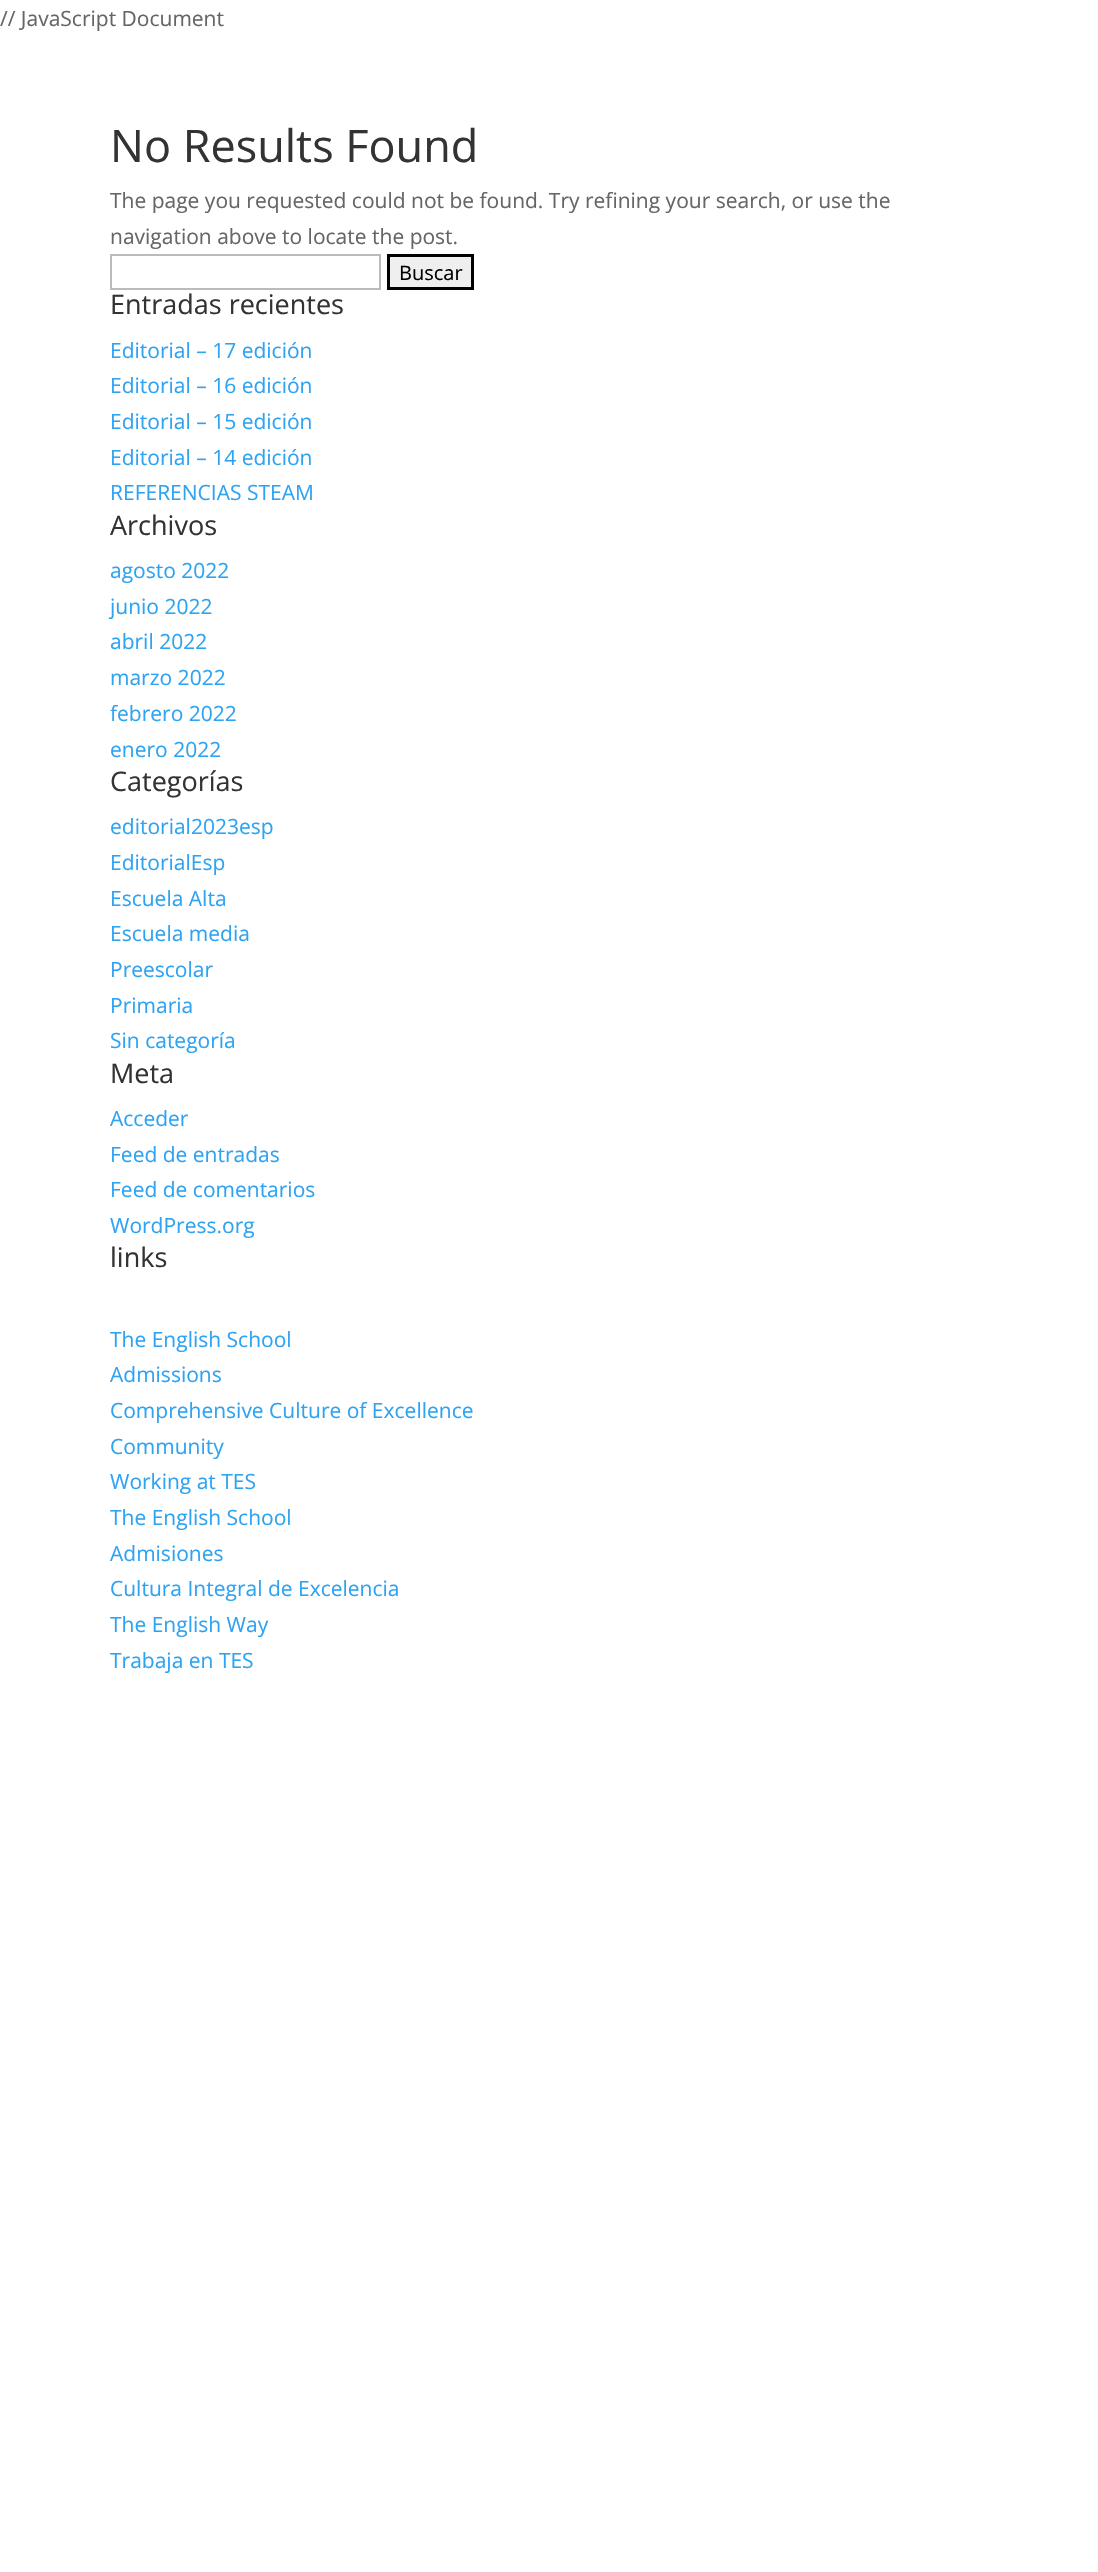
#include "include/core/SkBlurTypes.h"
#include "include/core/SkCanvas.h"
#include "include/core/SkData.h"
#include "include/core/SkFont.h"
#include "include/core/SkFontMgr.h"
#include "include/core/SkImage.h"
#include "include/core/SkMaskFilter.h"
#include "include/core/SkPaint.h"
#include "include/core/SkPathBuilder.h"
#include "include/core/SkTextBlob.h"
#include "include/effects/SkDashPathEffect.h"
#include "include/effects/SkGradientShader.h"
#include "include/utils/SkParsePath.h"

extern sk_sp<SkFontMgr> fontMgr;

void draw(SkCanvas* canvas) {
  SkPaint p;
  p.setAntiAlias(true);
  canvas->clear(SK_ColorWHITE);
  p.setStyle(SkPaint::kStroke_Style);
  p.setStrokeWidth(2);
  p.setColor(SkColorSetRGB(187, 187, 187));
  canvas->drawRect(SkRect::MakeLTRB(111, 255, 380, 289), p);
  p.setStyle(SkPaint::kFill_Style);
  p.setColor(SkColorSetRGB(239, 239, 239));
  canvas->drawRect(SkRect::MakeLTRB(388.5f, 255.5f, 472.5f, 288.5f), p);
  p.setStyle(SkPaint::kStroke_Style);
  p.setStrokeWidth(3);
  p.setColor(SK_ColorBLACK);
  canvas->drawRect(SkRect::MakeLTRB(388.5f, 255.5f, 472.5f, 288.5f), p);
  SkFont font1(fontMgr->matchFamilyStyle("Open Sans", SkFontStyle::Normal()), 21);
  font1.setSubpixel(true);
  p.setStyle(SkPaint::kFill_Style);
  p.setColor(SkColorSetRGB(102, 102, 102));
  canvas->drawString("// JavaScript Document", 0, 26, font1, p);
  SkFont font2(fontMgr->matchFamilyStyle("Open Sans", SkFontStyle::Normal()), 45);
  font2.setSubpixel(true);
  p.setColor(SkColorSetRGB(51, 51, 51));
  canvas->drawString("No Results Found", 110, 162, font2, p);
  p.setColor(SkColorSetRGB(102, 102, 102));
  canvas->drawString("The page you requested could not be found. Try refining your search, or use the", 110, 208, font1, p);
  canvas->drawString("navigation above to locate the post.", 110, 244, font1, p);
  SkFont font3(fontMgr->matchFamilyStyle("Open Sans", SkFontStyle::Normal()), 20);
  font3.setSubpixel(true);
  p.setColor(SK_ColorBLACK);
  canvas->drawString("Buscar", 399, 280, font3, p);
  SkFont font4(fontMgr->matchFamilyStyle("Open Sans", SkFontStyle::Normal()), 27);
  font4.setSubpixel(true);
  p.setColor(SkColorSetRGB(51, 51, 51));
  canvas->drawString("Entradas recientes", 110, 314, font4, p);
  p.setColor(SkColorSetRGB(46, 163, 242));
  canvas->drawString("Editorial – 17 edición", 110, 358, font1, p);
  canvas->drawString("Editorial – 16 edición", 110, 393, font1, p);
  canvas->drawString("Editorial – 15 edición", 110, 429, font1, p);
  canvas->drawString("Editorial – 14 edición", 110, 465, font1, p);
  canvas->drawString("REFERENCIAS STEAM", 110, 500, font1, p);
  p.setColor(SkColorSetRGB(51, 51, 51));
  canvas->drawString("Archivos", 110, 535, font4, p);
  p.setColor(SkColorSetRGB(46, 163, 242));
  canvas->drawString("agosto 2022", 110, 578, font1, p);
  canvas->drawString("junio 2022", 110, 614, font1, p);
  canvas->drawString("abril 2022", 110, 649, font1, p);
  canvas->drawString("marzo 2022", 110, 685, font1, p);
  canvas->drawString("febrero 2022", 110, 721, font1, p);
  canvas->drawString("enero 2022", 110, 757, font1, p);
  p.setColor(SkColorSetRGB(51, 51, 51));
  canvas->drawString("Categorías", 110, 791, font4, p);
  p.setColor(SkColorSetRGB(46, 163, 242));
  canvas->drawString("editorial2023esp", 110, 834, font1, p);
  canvas->drawString("EditorialEsp", 110, 870, font1, p);
  canvas->drawString("Escuela Alta", 110, 906, font1, p);
  canvas->drawString("Escuela media", 110, 941, font1, p);
  canvas->drawString("Preescolar", 110, 977, font1, p);
  canvas->drawString("Primaria", 110, 1013, font1, p);
  canvas->drawString("Sin categoría", 110, 1048, font1, p);
  p.setColor(SkColorSetRGB(51, 51, 51));
  canvas->drawString("Meta", 110, 1083, font4, p);
  p.setColor(SkColorSetRGB(46, 163, 242));
  canvas->drawString("Acceder", 110, 1126, font1, p);
  canvas->drawString("Feed de entradas", 110, 1162, font1, p);
  canvas->drawString("Feed de comentarios", 110, 1197, font1, p);
  canvas->drawString("WordPress.org", 110, 1233, font1, p);
  p.setColor(SkColorSetRGB(51, 51, 51));
  canvas->drawString("links", 110, 1267, font4, p);
  p.setColor(SkColorSetRGB(46, 163, 242));
  canvas->drawString("The English School", 110, 1347, font1, p);
  canvas->drawString("Admissions", 110, 1382, font1, p);
  canvas->drawString("Comprehensive Culture of Excellence", 110, 1418, font1, p);
  canvas->drawString("Community", 110, 1454, font1, p);
  canvas->drawString("Working at TES", 110, 1489, font1, p);
  canvas->drawString("The English School", 110, 1525, font1, p);
  canvas->drawString("Admisiones", 110, 1561, font1, p);
  canvas->drawString("Cultura Integral de Excelencia", 110, 1596, font1, p);
  canvas->drawString("The English Way", 110, 1632, font1, p);
  canvas->drawString("Trabaja en TES", 110, 1668, font1, p);
}
